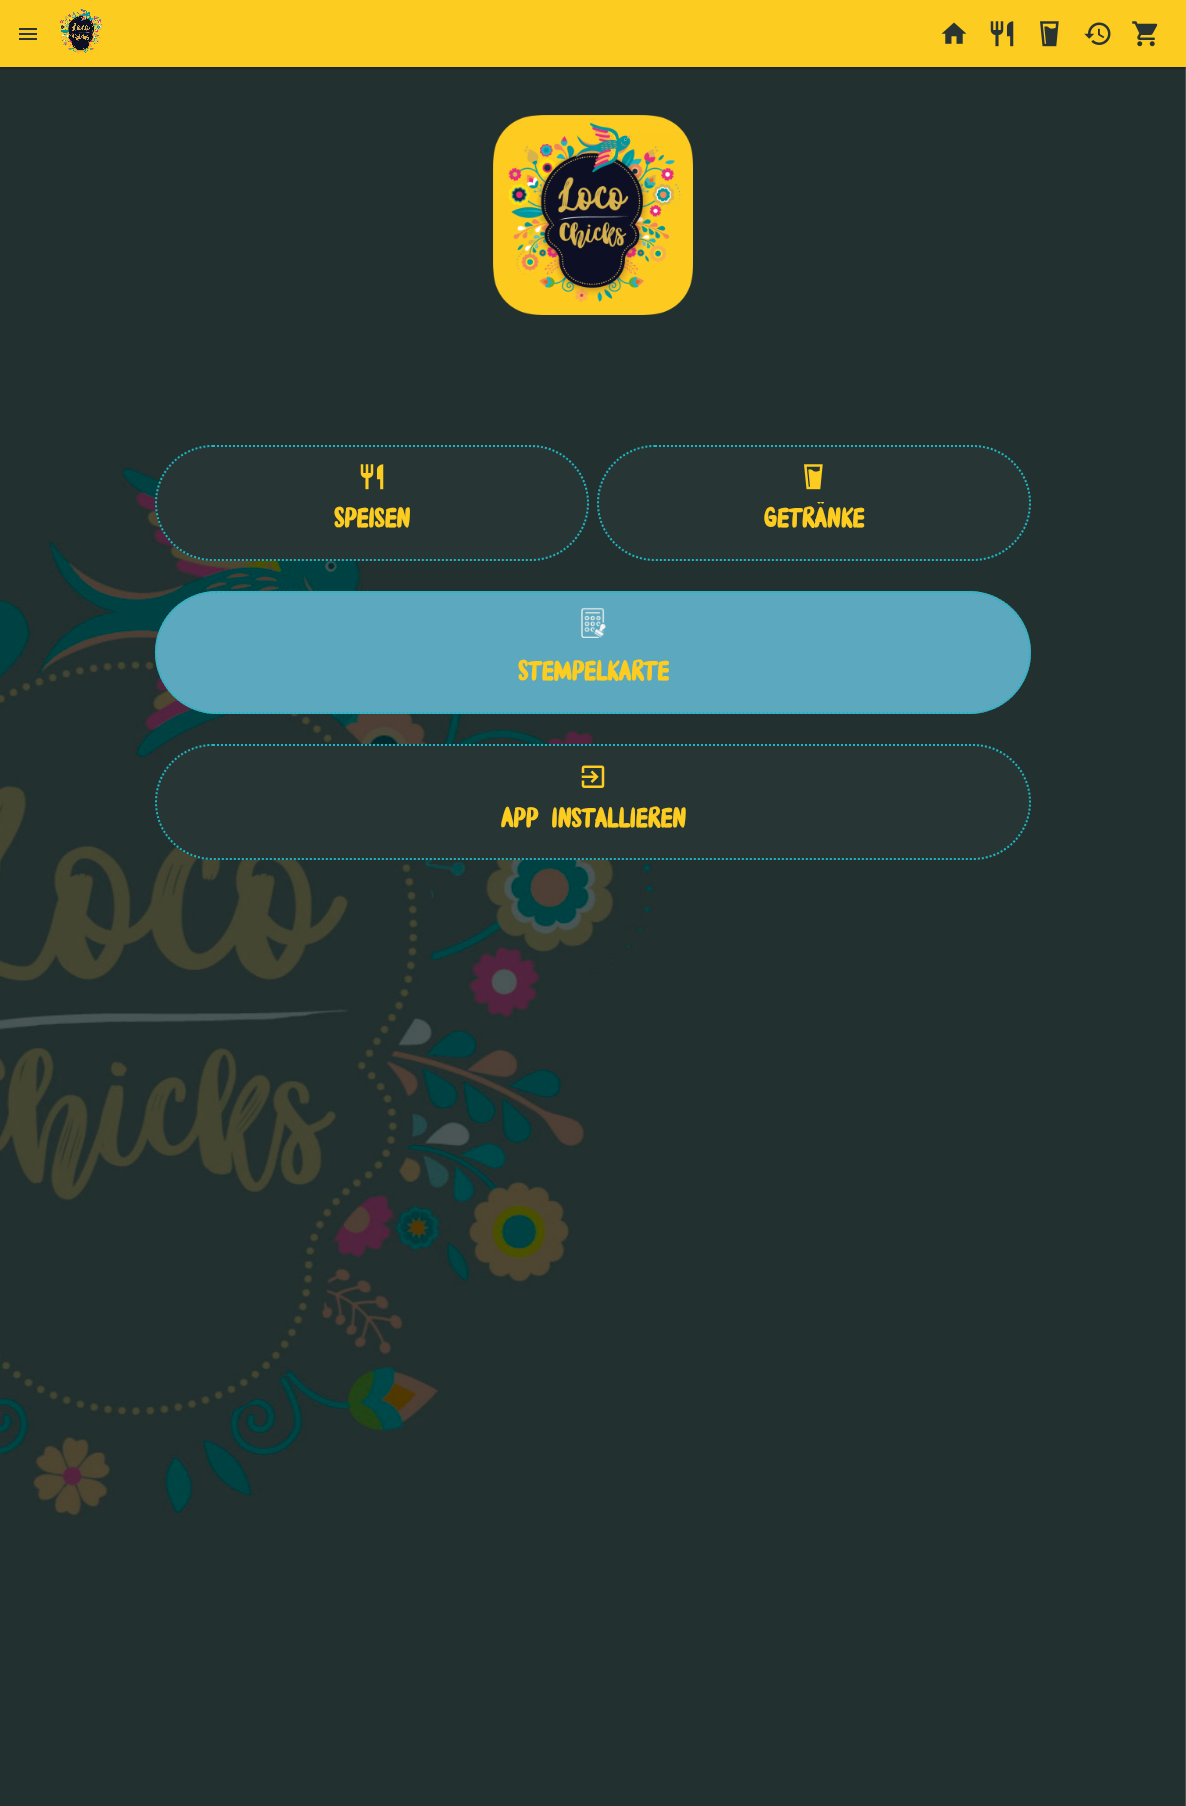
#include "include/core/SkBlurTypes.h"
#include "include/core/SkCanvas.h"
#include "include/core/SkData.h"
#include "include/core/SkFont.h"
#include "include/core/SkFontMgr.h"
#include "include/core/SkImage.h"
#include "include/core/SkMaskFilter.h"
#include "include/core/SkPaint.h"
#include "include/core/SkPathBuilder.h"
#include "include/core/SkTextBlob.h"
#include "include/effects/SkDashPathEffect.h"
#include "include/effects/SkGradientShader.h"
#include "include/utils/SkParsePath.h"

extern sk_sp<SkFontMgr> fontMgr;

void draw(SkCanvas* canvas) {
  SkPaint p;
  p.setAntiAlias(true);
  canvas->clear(SK_ColorWHITE);
  canvas->drawImageRect(SkImages::DeferredFromEncodedData(SkData::MakeFromFileName("images/1.png")), SkRect::MakeLTRB(0, 67, 1186, 1806), SkSamplingOptions());
  p.setColor(SkColorSetARGB(61, 0, 0, 0));
  p.setMaskFilter(SkMaskFilter::MakeBlur(kNormal_SkBlurStyle, 1));
  canvas->drawRect(SkRect::MakeLTRB(0, 1, 1186, 68), p);
  p.setMaskFilter(nullptr);
  p.setColor(SkColorSetARGB(31, 0, 0, 0));
  p.setMaskFilter(SkMaskFilter::MakeBlur(kNormal_SkBlurStyle, 1.5f));
  canvas->drawRect(SkRect::MakeLTRB(0, 1, 1186, 68), p);
  p.setMaskFilter(nullptr);
  p.setColor(SkColorSetRGB(253, 204, 32));
  canvas->drawRect(SkRect::MakeLTRB(0, 0, 1186, 67), p);
  canvas->drawImageRect(SkImages::DeferredFromEncodedData(SkData::MakeFromFileName("images/2.png")), SkRect::MakeLTRB(19, 28, 37, 40), SkSamplingOptions());
  canvas->drawImageRect(SkImages::DeferredFromEncodedData(SkData::MakeFromFileName("images/3.png")), SkRect::MakeLTRB(60, 9, 103, 54), SkSamplingOptions());
  canvas->drawImageRect(SkImages::DeferredFromEncodedData(SkData::MakeFromFileName("images/4.png")), SkRect::MakeLTRB(941, 22, 967, 44), SkSamplingOptions());
  canvas->drawImageRect(SkImages::DeferredFromEncodedData(SkData::MakeFromFileName("images/5.png")), SkRect::MakeLTRB(990, 21, 1014, 47), SkSamplingOptions());
  canvas->drawImageRect(SkImages::DeferredFromEncodedData(SkData::MakeFromFileName("images/6.png")), SkRect::MakeLTRB(1040, 21, 1059, 47), SkSamplingOptions());
  canvas->drawImageRect(SkImages::DeferredFromEncodedData(SkData::MakeFromFileName("images/7.png")), SkRect::MakeLTRB(1084, 22, 1111, 45), SkSamplingOptions());
  canvas->drawImageRect(SkImages::DeferredFromEncodedData(SkData::MakeFromFileName("images/8.png")), SkRect::MakeLTRB(1132, 21, 1158, 47), SkSamplingOptions());
  canvas->drawImageRect(SkImages::DeferredFromEncodedData(SkData::MakeFromFileName("images/9.png")), SkRect::MakeLTRB(493, 115, 693, 315), SkSamplingOptions());
  p.setColor(SkColorSetRGB(39, 54, 53));
  canvas->drawRoundRect(SkRect::MakeLTRB(155, 445, 589, 561), 58, 58, p);
  p.setStyle(SkPaint::kStroke_Style);
  p.setStrokeWidth(2);
  p.setColor(SkColorSetRGB(28, 183, 196));
  p.setPathEffect(SkDashPathEffect::Make({{2, 2}}, 0));
  canvas->drawPath(SkPathBuilder().moveTo(213, 446).lineTo(531, 446).cubicTo(562.5f, 446, 588, 471.5f, 588, 503).cubicTo(588, 534.5f, 562.5f, 560, 531, 560).lineTo(213, 560).cubicTo(181.5f, 560, 156, 534.5f, 156, 503).cubicTo(156, 471.5f, 181.5f, 446, 213, 446).close().detach(), p);
  p.setPathEffect(nullptr);
  canvas->drawImageRect(SkImages::DeferredFromEncodedData(SkData::MakeFromFileName("images/10.png")), SkRect::MakeLTRB(360, 464, 384, 490), SkSamplingOptions());
  p.setStyle(SkPaint::kFill_Style);
  p.setColor(SkColorSetRGB(39, 54, 53));
  canvas->drawRoundRect(SkRect::MakeLTRB(597, 445, 1031, 561), 58, 58, p);
  p.setStyle(SkPaint::kStroke_Style);
  p.setColor(SkColorSetRGB(28, 183, 196));
  p.setPathEffect(SkDashPathEffect::Make({{2, 2}}, 0));
  canvas->drawPath(SkPathBuilder().moveTo(655, 446).lineTo(973, 446).cubicTo(1004.5f, 446, 1030, 471.5f, 1030, 503).cubicTo(1030, 534.5f, 1004.5f, 560, 973, 560).lineTo(655, 560).cubicTo(623.5f, 560, 598, 534.5f, 598, 503).cubicTo(598, 471.5f, 623.5f, 446, 655, 446).close().detach(), p);
  p.setPathEffect(nullptr);
  canvas->drawImageRect(SkImages::DeferredFromEncodedData(SkData::MakeFromFileName("images/11.png")), SkRect::MakeLTRB(804, 464, 823, 490), SkSamplingOptions());
  p.setStyle(SkPaint::kFill_Style);
  p.setColor(SkColorSetRGB(92, 168, 191));
  canvas->drawRoundRect(SkRect::MakeLTRB(155, 591, 1031, 714), 61.5f, 61.5f, p);
  p.setStyle(SkPaint::kStroke_Style);
  p.setColor(SkColorSetRGB(28, 183, 196));
  p.setPathEffect(SkDashPathEffect::Make({{2, 2}}, 0));
  canvas->drawPath(SkPathBuilder().moveTo(216.5f, 592).lineTo(969.5f, 592).cubicTo(1003, 592, 1030, 619, 1030, 652.5f).cubicTo(1030, 686, 1003, 713, 969.5f, 713).lineTo(216.5f, 713).cubicTo(183, 713, 156, 686, 156, 652.5f).cubicTo(156, 619, 183, 592, 216.5f, 592).close().detach(), p);
  p.setPathEffect(nullptr);
  canvas->drawImageRect(SkImages::DeferredFromEncodedData(SkData::MakeFromFileName("images/12.png")), SkRect::MakeLTRB(581, 607, 606, 638), SkSamplingOptions());
  p.setStyle(SkPaint::kFill_Style);
  p.setColor(SkColorSetRGB(39, 54, 53));
  canvas->drawRoundRect(SkRect::MakeLTRB(155, 744, 1031, 860), 58, 58, p);
  p.setStyle(SkPaint::kStroke_Style);
  p.setColor(SkColorSetRGB(28, 183, 196));
  p.setPathEffect(SkDashPathEffect::Make({{2, 2}}, 0));
  canvas->drawPath(SkPathBuilder().moveTo(213, 745).lineTo(973, 745).cubicTo(1004.5f, 745, 1030, 770.5f, 1030, 802).cubicTo(1030, 833.5f, 1004.5f, 859, 973, 859).lineTo(213, 859).cubicTo(181.5f, 859, 156, 833.5f, 156, 802).cubicTo(156, 770.5f, 181.5f, 745, 213, 745).close().detach(), p);
  p.setPathEffect(nullptr);
  canvas->drawImageRect(SkImages::DeferredFromEncodedData(SkData::MakeFromFileName("images/13.png")), SkRect::MakeLTRB(581, 765, 605, 788), SkSamplingOptions());
  SkFont font1(fontMgr->matchFamilyStyle("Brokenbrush", SkFontStyle::Bold()), 26.75f);
  font1.setSubpixel(true);
  p.setStyle(SkPaint::kFill_Style);
  p.setColor(SkColorSetRGB(253, 204, 32));
  canvas->drawString("Speisen", 334, 527, font1, p);
  canvas->save();
  canvas->clipRect(SkRect::MakeLTRB(629, 502, 999, 540));
  canvas->drawString("Getränke", 764, 527, font1, p);
  canvas->restore();
  canvas->drawString("Stempelkarte", 518, 680, font1, p);
  canvas->drawString("App installieren", 501, 827, font1, p);
}
